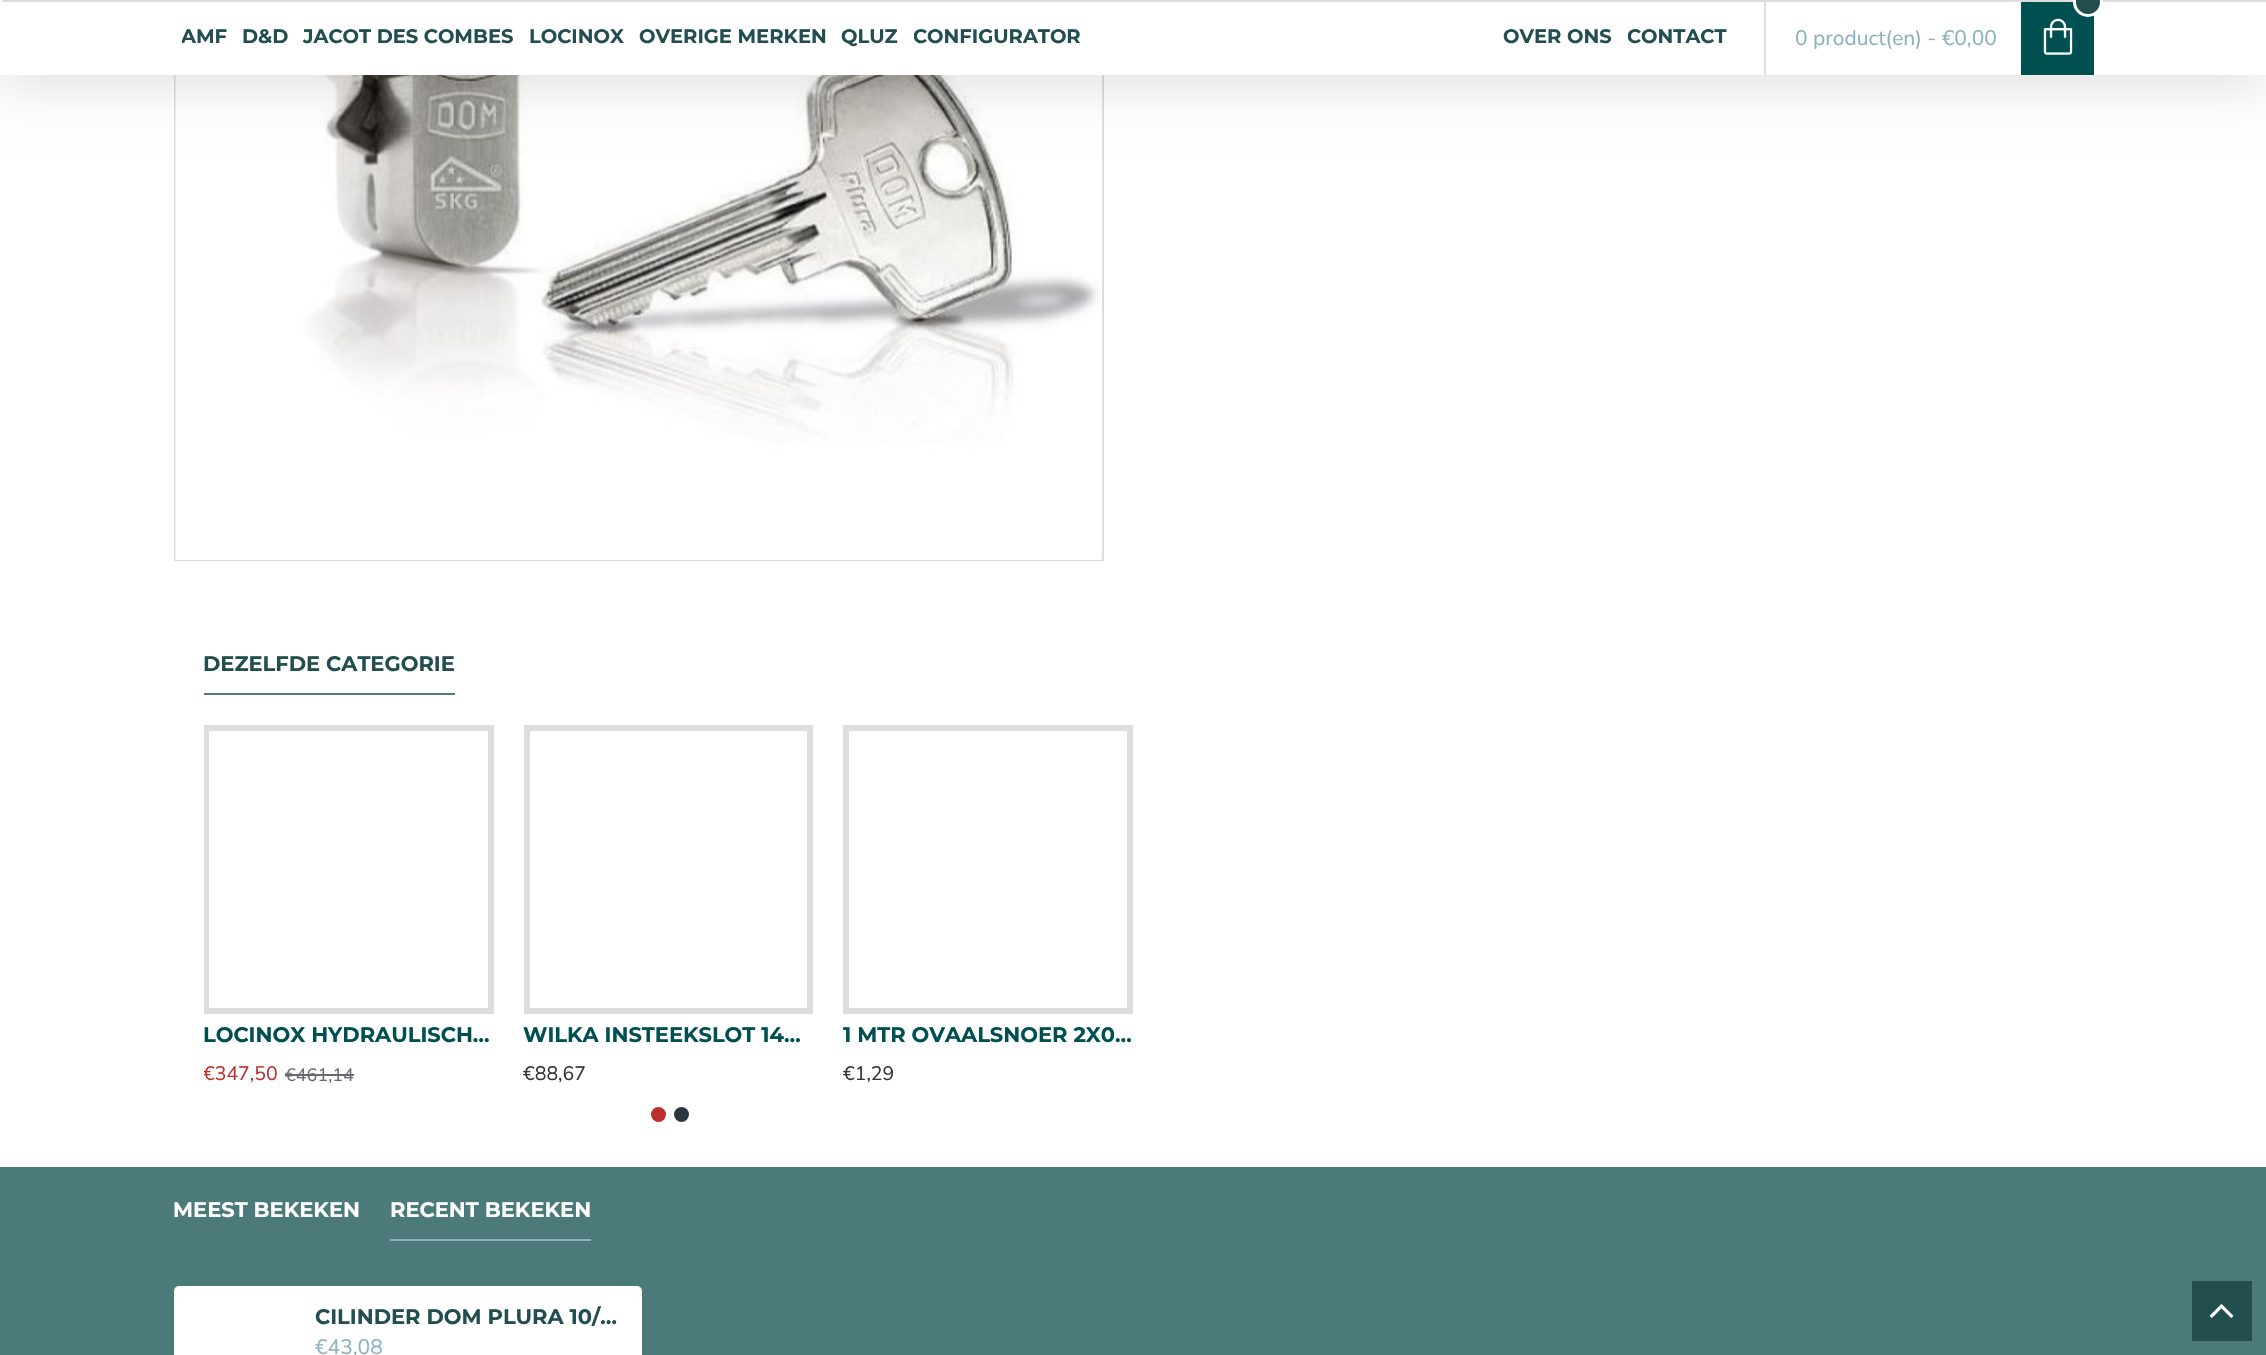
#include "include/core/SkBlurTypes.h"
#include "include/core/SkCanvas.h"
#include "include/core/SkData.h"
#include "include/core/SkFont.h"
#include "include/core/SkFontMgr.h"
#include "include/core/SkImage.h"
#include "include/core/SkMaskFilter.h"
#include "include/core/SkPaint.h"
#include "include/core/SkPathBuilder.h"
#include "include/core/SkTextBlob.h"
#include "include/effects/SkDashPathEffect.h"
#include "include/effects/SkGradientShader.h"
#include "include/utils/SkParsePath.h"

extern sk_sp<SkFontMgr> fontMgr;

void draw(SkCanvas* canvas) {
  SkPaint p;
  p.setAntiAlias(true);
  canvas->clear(SK_ColorWHITE);
  p.setStyle(SkPaint::kStroke_Style);
  p.setStrokeWidth(2);
  p.setColor(SkColorSetRGB(221, 221, 221));
  canvas->drawRect(SkRect::MakeLTRB(175, -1, 1103, 560), p);
  canvas->drawImageRect(SkImages::DeferredFromEncodedData(SkData::MakeFromFileName("images/2.png")), SkRect::MakeLTRB(175, 75, 1101, 560), SkSamplingOptions());
  p.setStyle(SkPaint::kFill_Style);
  p.setColor(SkColorSetARGB(26, 0, 0, 0));
  p.setMaskFilter(SkMaskFilter::MakeBlur(kNormal_SkBlurStyle, 22.5f));
  canvas->drawRect(SkRect::MakeLTRB(0, -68, 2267, 90), p);
  p.setMaskFilter(nullptr);
  p.setColor(SK_ColorWHITE);
  canvas->drawRect(SkRect::MakeLTRB(0, 0, 2266, 75), p);
  p.setColor(SkColorSetRGB(221, 221, 221));
  canvas->drawRect(SkRect::MakeLTRB(2, 0, 2266, 2), p);
  canvas->drawRect(SkRect::MakeLTRB(1764, 0, 1766, 75), p);
  p.setColor(SkColorSetRGB(0, 79, 81));
  canvas->drawRect(SkRect::MakeLTRB(2021, 2, 2094, 75), p);
  p.setColor(SkColorSetRGB(34, 78, 80));
  canvas->drawCircle(2088, 2, 13.5f, p);
  p.setStyle(SkPaint::kStroke_Style);
  p.setStrokeWidth(3);
  p.setColor(SK_ColorWHITE);
  canvas->drawCircle(2088, 2, 13.5f, p);
  canvas->drawImageRect(SkImages::DeferredFromEncodedData(SkData::MakeFromFileName("images/1.png")), SkRect::MakeLTRB(2043, 18, 2073, 55), SkSamplingOptions());
  p.setStyle(SkPaint::kFill_Style);
  p.setColor(SkColorSetRGB(76, 122, 122));
  canvas->drawRect(SkRect::MakeLTRB(204, 693, 455, 695), p);
  canvas->save();
  canvas->clipRect(SkRect::MakeLTRB(204, 725, 494, 1014));
  p.setStyle(SkPaint::kStroke_Style);
  p.setStrokeWidth(6);
  p.setColor(SkColorSetRGB(221, 221, 221));
  canvas->drawRect(SkRect::MakeLTRB(206, 728, 491, 1011), p);
  canvas->restore();
  p.setStyle(SkPaint::kFill_Style);
  p.setColor(SkColorSetRGB(105, 105, 115));
  canvas->drawRect(SkRect::MakeLTRB(285, 1074, 354, 1076), p);
  p.setStyle(SkPaint::kStroke_Style);
  p.setColor(SkColorSetRGB(221, 221, 221));
  canvas->drawRect(SkRect::MakeLTRB(527, 728, 810, 1011), p);
  canvas->drawRect(SkRect::MakeLTRB(846, 728, 1130, 1011), p);
  p.setStyle(SkPaint::kFill_Style);
  p.setColor(SkColorSetRGB(189, 47, 44));
  canvas->drawCircle(658.5f, 1114.5f, 7.5f, p);
  p.setColor(SkColorSetRGB(44, 54, 64));
  canvas->drawCircle(681.5f, 1114.5f, 7.5f, p);
  p.setColor(SkColorSetRGB(76, 122, 122));
  canvas->drawRect(SkRect::MakeLTRB(0, 1167, 2266, 1355), p);
  p.setColor(SkColorSetRGB(139, 177, 192));
  canvas->drawRect(SkRect::MakeLTRB(390, 1239, 591, 1241), p);
  p.setColor(SK_ColorWHITE);
  canvas->drawRoundRect(SkRect::MakeLTRB(174, 1286, 642, 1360), 5, 5, p);
  p.setColor(SkColorSetRGB(34, 78, 80));
  canvas->drawRect(SkRect::MakeLTRB(2192, 1281, 2252, 1341), p);
  canvas->drawImageRect(SkImages::DeferredFromEncodedData(SkData::MakeFromFileName("images/3.png")), SkRect::MakeLTRB(2209, 1304, 2234, 1318), SkSamplingOptions());
  canvas->save();
  canvas->clipRect(SkRect::MakeLTRB(182, 23, 227, 53));
  SkFont font1(fontMgr->matchFamilyStyle("Montserrat", SkFontStyle(100, SkFontStyle::kNormal_Width, SkFontStyle::kUpright_Slant)), 19.5f);
  font1.setSubpixel(true);
  canvas->drawString("AMF", 181, 43, font1, p);
  canvas->restore();
  canvas->drawString("D&D", 242, 43, font1, p);
  canvas->drawString("JACOT DES COMBES", 303, 43, font1, p);
  canvas->drawString("LOCINOX", 529, 43, font1, p);
  canvas->drawString("OVERIGE MERKEN", 639, 43, font1, p);
  canvas->drawString("QLUZ", 841, 43, font1, p);
  canvas->save();
  canvas->clipRect(SkRect::MakeLTRB(914, 23, 1082, 53));
  canvas->drawString("CONFIGURATOR", 913, 43, font1, p);
  canvas->restore();
  canvas->drawString("OVER ONS", 1503, 43, font1, p);
  canvas->save();
  canvas->clipRect(SkRect::MakeLTRB(1628, 23, 1727, 53));
  canvas->drawString("CONTACT", 1627, 43, font1, p);
  canvas->restore();
  SkFont font2(fontMgr->matchFamilyStyle("Nunito Sans", SkFontStyle(200, SkFontStyle::kNormal_Width, SkFontStyle::kUpright_Slant)), 21);
  font2.setSubpixel(true);
  p.setColor(SkColorSetRGB(139, 177, 192));
  canvas->drawString("0 product(en) - €0,00", 1795, 45, font2, p);
  SkFont font3(fontMgr->matchFamilyStyle("Montserrat", SkFontStyle(100, SkFontStyle::kNormal_Width, SkFontStyle::kUpright_Slant)), 21);
  font3.setSubpixel(true);
  p.setColor(SkColorSetRGB(34, 78, 80));
  canvas->drawString("DEZELFDE CATEGORIE", 203, 671, font3, p);
  p.setColor(SkColorSetRGB(0, 79, 81));
  canvas->drawString("LOCINOX HYDRAULISCH…", 203, 1042, font3, p);
  canvas->save();
  canvas->clipRect(SkRect::MakeLTRB(204, 725, 1134, 1085));
  SkFont font4(fontMgr->matchFamilyStyle("Nunito Sans", SkFontStyle(200, SkFontStyle::kNormal_Width, SkFontStyle::kUpright_Slant)), 19.5f);
  font4.setSubpixel(true);
  p.setColor(SkColorSetRGB(189, 47, 44));
  canvas->drawString("€347,50", 203, 1080, font4, p);
  canvas->restore();
  SkFont font5(fontMgr->matchFamilyStyle("Nunito Sans", SkFontStyle(200, SkFontStyle::kNormal_Width, SkFontStyle::kUpright_Slant)), 18);
  font5.setSubpixel(true);
  p.setColor(SkColorSetRGB(105, 105, 115));
  canvas->drawString("€461,14", 285, 1081, font5, p);
  p.setColor(SkColorSetRGB(0, 79, 81));
  canvas->drawString("WILKA INSTEEKSLOT 14…", 523, 1042, font3, p);
  p.setColor(SkColorSetRGB(51, 51, 51));
  canvas->drawString("€88,67", 523, 1080, font4, p);
  p.setColor(SkColorSetRGB(0, 79, 81));
  canvas->drawString("1 MTR OVAALSNOER 2X0…", 843, 1042, font3, p);
  p.setColor(SkColorSetRGB(51, 51, 51));
  canvas->drawString("€1,29", 843, 1080, font4, p);
  p.setColor(SK_ColorWHITE);
  canvas->drawString("MEEST BEKEKEN", 173, 1217, font3, p);
  canvas->drawString("RECENT BEKEKEN", 390, 1217, font3, p);
  p.setColor(SkColorSetRGB(34, 78, 80));
  canvas->drawString("CILINDER DOM PLURA 10/…", 315, 1324, font3, p);
  p.setColor(SkColorSetRGB(139, 177, 192));
  canvas->drawString("€43,08", 315, 1354, font2, p);
}
